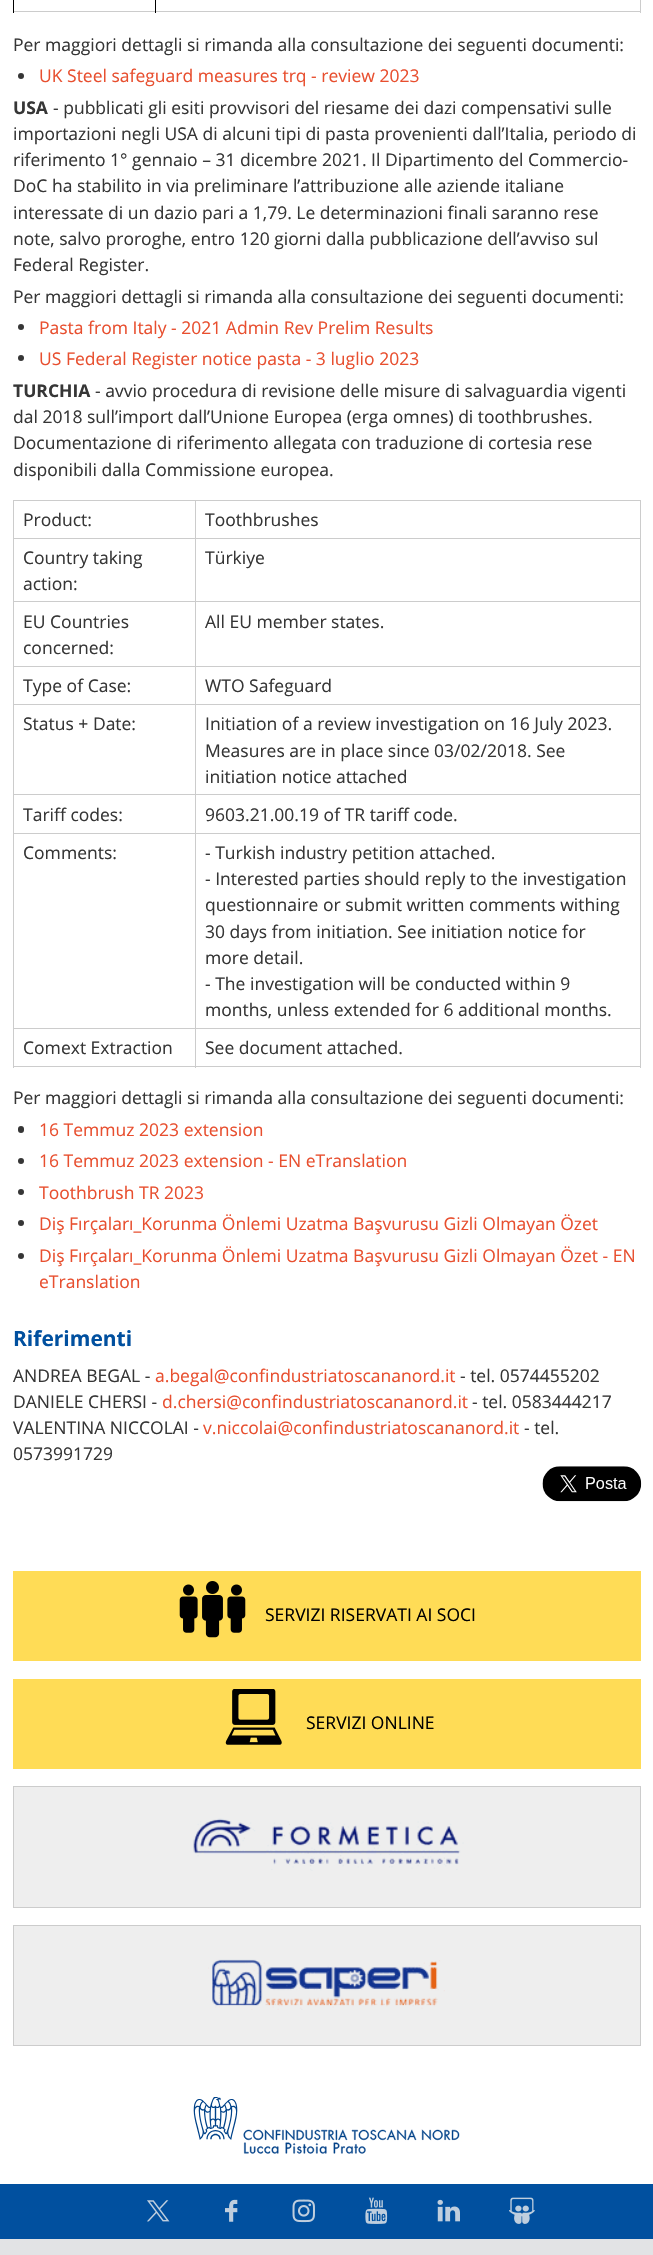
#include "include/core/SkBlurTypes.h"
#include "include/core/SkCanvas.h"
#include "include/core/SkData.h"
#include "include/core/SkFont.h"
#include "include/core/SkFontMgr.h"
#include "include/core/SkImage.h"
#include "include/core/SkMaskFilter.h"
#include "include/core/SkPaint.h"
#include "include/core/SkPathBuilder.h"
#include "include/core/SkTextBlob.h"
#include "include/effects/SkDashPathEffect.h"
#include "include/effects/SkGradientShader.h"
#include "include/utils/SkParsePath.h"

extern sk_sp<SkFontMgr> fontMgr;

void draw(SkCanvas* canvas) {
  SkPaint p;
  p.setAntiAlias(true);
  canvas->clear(SK_ColorWHITE);
  p.setColor(SkColorSetRGB(204, 204, 204));
  canvas->drawRect(SkRect::MakeLTRB(640, 0, 641, 13), p);
  canvas->drawRect(SkRect::MakeLTRB(13, 11, 641, 12), p);
  p.setColor(SK_ColorBLACK);
  canvas->drawRect(SkRect::MakeLTRB(13, 0, 14, 13), p);
  canvas->drawRect(SkRect::MakeLTRB(155, 0, 156, 13), p);
  p.setColor(SkColorSetRGB(54, 54, 54));
  canvas->drawCircle(21, 76, 3, p);
  canvas->drawCircle(21, 327, 3, p);
  canvas->drawCircle(21, 358, 3, p);
  p.setColor(SkColorSetRGB(204, 204, 204));
  canvas->drawRect(SkRect::MakeLTRB(640, 500, 641, 1068), p);
  canvas->drawRect(SkRect::MakeLTRB(13, 1066, 641, 1067), p);
  canvas->drawRect(SkRect::MakeLTRB(195, 500, 641, 501), p);
  canvas->drawRect(SkRect::MakeLTRB(195, 538, 641, 539), p);
  canvas->drawRect(SkRect::MakeLTRB(195, 601, 641, 602), p);
  canvas->drawRect(SkRect::MakeLTRB(195, 666, 641, 667), p);
  canvas->drawRect(SkRect::MakeLTRB(195, 704, 641, 705), p);
  canvas->drawRect(SkRect::MakeLTRB(195, 794, 641, 795), p);
  canvas->drawRect(SkRect::MakeLTRB(195, 833, 641, 834), p);
  canvas->drawRect(SkRect::MakeLTRB(195, 1028, 641, 1029), p);
  canvas->drawRect(SkRect::MakeLTRB(195, 1028, 196, 1068), p);
  canvas->drawRect(SkRect::MakeLTRB(13, 1028, 196, 1029), p);
  canvas->drawRect(SkRect::MakeLTRB(195, 833, 196, 1029), p);
  canvas->drawRect(SkRect::MakeLTRB(13, 833, 196, 834), p);
  canvas->drawRect(SkRect::MakeLTRB(195, 794, 196, 834), p);
  canvas->drawRect(SkRect::MakeLTRB(13, 794, 196, 795), p);
  canvas->drawRect(SkRect::MakeLTRB(195, 704, 196, 795), p);
  canvas->drawRect(SkRect::MakeLTRB(13, 704, 196, 705), p);
  canvas->drawRect(SkRect::MakeLTRB(195, 666, 196, 705), p);
  canvas->drawRect(SkRect::MakeLTRB(13, 666, 196, 667), p);
  canvas->drawRect(SkRect::MakeLTRB(195, 601, 196, 668), p);
  canvas->drawRect(SkRect::MakeLTRB(13, 601, 196, 602), p);
  canvas->drawRect(SkRect::MakeLTRB(195, 538, 196, 603), p);
  canvas->drawRect(SkRect::MakeLTRB(13, 538, 196, 539), p);
  canvas->drawRect(SkRect::MakeLTRB(195, 500, 196, 539), p);
  canvas->drawRect(SkRect::MakeLTRB(13, 500, 196, 501), p);
  canvas->drawRect(SkRect::MakeLTRB(13, 1028, 14, 1068), p);
  canvas->drawRect(SkRect::MakeLTRB(13, 833, 14, 1029), p);
  canvas->drawRect(SkRect::MakeLTRB(13, 794, 14, 834), p);
  canvas->drawRect(SkRect::MakeLTRB(13, 704, 14, 795), p);
  canvas->drawRect(SkRect::MakeLTRB(13, 666, 14, 705), p);
  canvas->drawRect(SkRect::MakeLTRB(13, 601, 14, 668), p);
  canvas->drawRect(SkRect::MakeLTRB(13, 538, 14, 603), p);
  canvas->drawRect(SkRect::MakeLTRB(13, 500, 14, 539), p);
  p.setColor(SkColorSetRGB(54, 54, 54));
  canvas->drawRoundRect(SkRect::MakeLTRB(18, 1126, 24, 1133), 3, 3, p);
  canvas->drawCircle(21, 1161, 3, p);
  canvas->drawCircle(21, 1192, 3, p);
  canvas->drawCircle(21, 1223, 3, p);
  canvas->drawCircle(21, 1256, 3, p);
  canvas->drawImageRect(SkImages::DeferredFromEncodedData(SkData::MakeFromFileName("images/1.png")), SkRect::MakeLTRB(542, 1466, 642, 1502), SkSamplingOptions());
  p.setColor(SkColorSetRGB(255, 220, 86));
  canvas->drawRect(SkRect::MakeLTRB(13, 1571, 641, 1661), p);
  canvas->drawImageRect(SkImages::DeferredFromEncodedData(SkData::MakeFromFileName("images/2.png")), SkRect::MakeLTRB(179, 1581, 246, 1638), SkSamplingOptions());
  canvas->drawRect(SkRect::MakeLTRB(13, 1679, 641, 1769), p);
  canvas->drawImageRect(SkImages::DeferredFromEncodedData(SkData::MakeFromFileName("images/3.png")), SkRect::MakeLTRB(225, 1689, 282, 1745), SkSamplingOptions());
  p.setColor(SkColorSetRGB(238, 238, 238));
  canvas->drawRect(SkRect::MakeLTRB(13.5f, 1786.5f, 640.5f, 1907.5f), p);
  p.setStyle(SkPaint::kStroke_Style);
  p.setStrokeWidth(1);
  p.setColor(SkColorSetRGB(204, 204, 204));
  canvas->drawRect(SkRect::MakeLTRB(13.5f, 1786.5f, 640.5f, 1907.5f), p);
  canvas->drawImageRect(SkImages::DeferredFromEncodedData(SkData::MakeFromFileName("images/4.png")), SkRect::MakeLTRB(193, 1818, 464, 1871), SkSamplingOptions());
  p.setStyle(SkPaint::kFill_Style);
  p.setColor(SkColorSetRGB(238, 238, 238));
  canvas->drawRect(SkRect::MakeLTRB(13.5f, 1925.5f, 640.5f, 2045.5f), p);
  p.setStyle(SkPaint::kStroke_Style);
  p.setColor(SkColorSetRGB(204, 204, 204));
  canvas->drawRect(SkRect::MakeLTRB(13.5f, 1925.5f, 640.5f, 2045.5f), p);
  canvas->drawImageRect(SkImages::DeferredFromEncodedData(SkData::MakeFromFileName("images/5.png")), SkRect::MakeLTRB(208, 1959, 445, 2010), SkSamplingOptions());
  canvas->drawImageRect(SkImages::DeferredFromEncodedData(SkData::MakeFromFileName("images/6.png")), SkRect::MakeLTRB(193, 2097, 460, 2154), SkSamplingOptions());
  p.setStyle(SkPaint::kFill_Style);
  p.setColor(SkColorSetRGB(1, 80, 159));
  canvas->drawRect(SkRect::MakeLTRB(0, 2184, 653, 2239), p);
  canvas->drawImageRect(SkImages::DeferredFromEncodedData(SkData::MakeFromFileName("images/7.png")), SkRect::MakeLTRB(147, 2200, 170, 2222), SkSamplingOptions());
  canvas->drawImageRect(SkImages::DeferredFromEncodedData(SkData::MakeFromFileName("images/8.png")), SkRect::MakeLTRB(225, 2199, 238, 2222), SkSamplingOptions());
  canvas->drawImageRect(SkImages::DeferredFromEncodedData(SkData::MakeFromFileName("images/9.png")), SkRect::MakeLTRB(292, 2199, 315, 2223), SkSamplingOptions());
  canvas->drawImageRect(SkImages::DeferredFromEncodedData(SkData::MakeFromFileName("images/10.png")), SkRect::MakeLTRB(365, 2197, 388, 2224), SkSamplingOptions());
  canvas->drawImageRect(SkImages::DeferredFromEncodedData(SkData::MakeFromFileName("images/11.png")), SkRect::MakeLTRB(437, 2199, 460, 2222), SkSamplingOptions());
  canvas->drawImageRect(SkImages::DeferredFromEncodedData(SkData::MakeFromFileName("images/12.png")), SkRect::MakeLTRB(509, 2197, 535, 2224), SkSamplingOptions());
  p.setColor(SkColorSetRGB(226, 227, 229));
  canvas->drawRect(SkRect::MakeLTRB(0, 2239, 653, 2255), p);
  SkFont font1(fontMgr->matchFamilyStyle("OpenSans", SkFontStyle::Normal()), 17.5f);
  font1.setSubpixel(true);
  p.setColor(SkColorSetRGB(54, 54, 54));
  canvas->drawString("Per maggiori dettagli si rimanda alla consultazione dei seguenti documenti:", 13, 51, font1, p);
  p.setColor(SkColorSetRGB(232, 79, 47));
  canvas->drawString("UK Steel safeguard measures trq - review 2023", 39, 82, font1, p);
  SkFont font2(fontMgr->matchFamilyStyle("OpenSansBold", SkFontStyle::Bold()), 17.5f);
  font2.setSubpixel(true);
  p.setColor(SkColorSetRGB(54, 54, 54));
  canvas->drawString("USA", 13, 114, font2, p);
  canvas->drawString("- pubblicati gli esiti provvisori del riesame dei dazi compensativi sulle", 53, 114, font1, p);
  canvas->drawString("importazioni negli USA di alcuni tipi di pasta provenienti dall’Italia, periodo di", 13, 140, font1, p);
  canvas->drawString("riferimento 1° gennaio – 31 dicembre 2021. Il Dipartimento del Commercio-", 13, 166, font1, p);
  canvas->drawString("DoC ha stabilito in via preliminare l’attribuzione alle aziende italiane", 13, 192, font1, p);
  canvas->drawString("interessate di un dazio pari a 1,79. Le determinazioni finali saranno rese", 13, 219, font1, p);
  canvas->drawString("note, salvo proroghe, entro 120 giorni dalla pubblicazione dell’avviso sul", 13, 245, font1, p);
  canvas->drawString("Federal Register.", 13, 271, font1, p);
  canvas->drawString("Per maggiori dettagli si rimanda alla consultazione dei seguenti documenti:", 13, 303, font1, p);
  p.setColor(SkColorSetRGB(232, 79, 47));
  canvas->drawString("Pasta from Italy - 2021 Admin Rev Prelim Results", 39, 334, font1, p);
  canvas->drawString("US Federal Register notice pasta - 3 luglio 2023", 39, 365, font1, p);
  p.setColor(SkColorSetRGB(54, 54, 54));
  canvas->drawString("TURCHIA", 13, 397, font2, p);
  canvas->drawString("- avvio procedura di revisione delle misure di salvaguardia vigenti", 95, 397, font1, p);
  canvas->drawString("dal 2018 sull’import dall’Unione Europea (erga omnes) di toothbrushes.", 13, 423, font1, p);
  canvas->drawString("Documentazione di riferimento allegata con traduzione di cortesia rese", 13, 449, font1, p);
  canvas->drawString("disponibili dalla Commissione europea.", 13, 476, font1, p);
  canvas->drawString("Product:", 23, 526, font1, p);
  canvas->drawString("Toothbrushes", 205, 526, font1, p);
  canvas->drawString("Country taking", 23, 564, font1, p);
  canvas->drawString("action:", 23, 590, font1, p);
  canvas->drawString("Türkiye", 205, 564, font1, p);
  canvas->drawString("EU Countries", 23, 628, font1, p);
  canvas->drawString("concerned:", 23, 654, font1, p);
  canvas->drawString("All EU member states.", 205, 628, font1, p);
  canvas->drawString("Type of Case:", 23, 692, font1, p);
  canvas->drawString("WTO Safeguard", 205, 692, font1, p);
  canvas->drawString("Status + Date:", 23, 730, font1, p);
  canvas->drawString("Initiation of a review investigation on 16 July 2023.", 205, 730, font1, p);
  canvas->drawString("Measures are in place since 03/02/2018. See", 205, 757, font1, p);
  canvas->drawString("initiation notice attached", 205, 783, font1, p);
  canvas->drawString("Tariff codes:", 23, 821, font1, p);
  canvas->drawString("9603.21.00.19 of TR tariff code.", 205, 821, font1, p);
  canvas->drawString("Comments:", 23, 859, font1, p);
  canvas->drawString("- Turkish industry petition attached.", 205, 859, font1, p);
  canvas->drawString("- Interested parties should reply to the investigation", 205, 885, font1, p);
  canvas->drawString("questionnaire or submit written comments withing", 205, 911, font1, p);
  canvas->drawString("30 days from initiation. See initiation notice for", 205, 938, font1, p);
  canvas->drawString("more detail.", 205, 964, font1, p);
  canvas->drawString("- The investigation will be conducted within 9", 205, 990, font1, p);
  canvas->drawString("months, unless extended for 6 additional months.", 205, 1016, font1, p);
  canvas->drawString("Comext Extraction", 23, 1054, font1, p);
  canvas->drawString("See document attached.", 205, 1054, font1, p);
  canvas->drawString("Per maggiori dettagli si rimanda alla consultazione dei seguenti documenti:", 13, 1104, font1, p);
  p.setColor(SkColorSetRGB(232, 79, 47));
  canvas->drawString("16 Temmuz 2023 extension", 39, 1136, font1, p);
  canvas->drawString("16 Temmuz 2023 extension - EN eTranslation", 39, 1167, font1, p);
  canvas->drawString("Toothbrush TR 2023", 39, 1199, font1, p);
  canvas->drawString("Diş Fırçaları_Korunma Önlemi Uzatma Başvurusu Gizli Olmayan Özet", 39, 1230, font1, p);
  canvas->drawString("Diş Fırçaları_Korunma Önlemi Uzatma Başvurusu Gizli Olmayan Özet - EN", 39, 1262, font1, p);
  canvas->drawString("eTranslation", 39, 1288, font1, p);
  SkFont font3(fontMgr->matchFamilyStyle("OpenSansBold", SkFontStyle::Bold()), 21);
  font3.setSubpixel(true);
  p.setColor(SkColorSetRGB(1, 80, 159));
  canvas->drawString("Riferimenti", 13, 1346, font3, p);
  p.setColor(SkColorSetRGB(54, 54, 54));
  canvas->drawString("ANDREA BEGAL -", 13, 1382, font1, p);
  p.setColor(SkColorSetRGB(232, 79, 47));
  canvas->drawString("a.begal@confindustriatoscananord.it", 155, 1382, font1, p);
  p.setColor(SkColorSetRGB(54, 54, 54));
  canvas->drawString("- tel. 0574455202", 460, 1382, font1, p);
  canvas->drawString("DANIELE CHERSI -", 13, 1408, font1, p);
  p.setColor(SkColorSetRGB(232, 79, 47));
  canvas->drawString("d.chersi@confindustriatoscananord.it", 162, 1408, font1, p);
  p.setColor(SkColorSetRGB(54, 54, 54));
  canvas->drawString("- tel. 0583444217", 472, 1408, font1, p);
  canvas->drawString("VALENTINA NICCOLAI -", 13, 1434, font1, p);
  p.setColor(SkColorSetRGB(232, 79, 47));
  canvas->drawString("v.niccolai@confindustriatoscananord.it", 203, 1434, font1, p);
  p.setColor(SkColorSetRGB(54, 54, 54));
  canvas->drawString("- tel.", 524, 1434, font1, p);
  canvas->drawString("0573991729", 13, 1460, font1, p);
  p.setColor(SK_ColorBLACK);
  canvas->drawString("SERVIZI RISERVATI AI SOCI", 265, 1621, font1, p);
  canvas->drawString("SERVIZI ONLINE", 306, 1729, font1, p);
}
